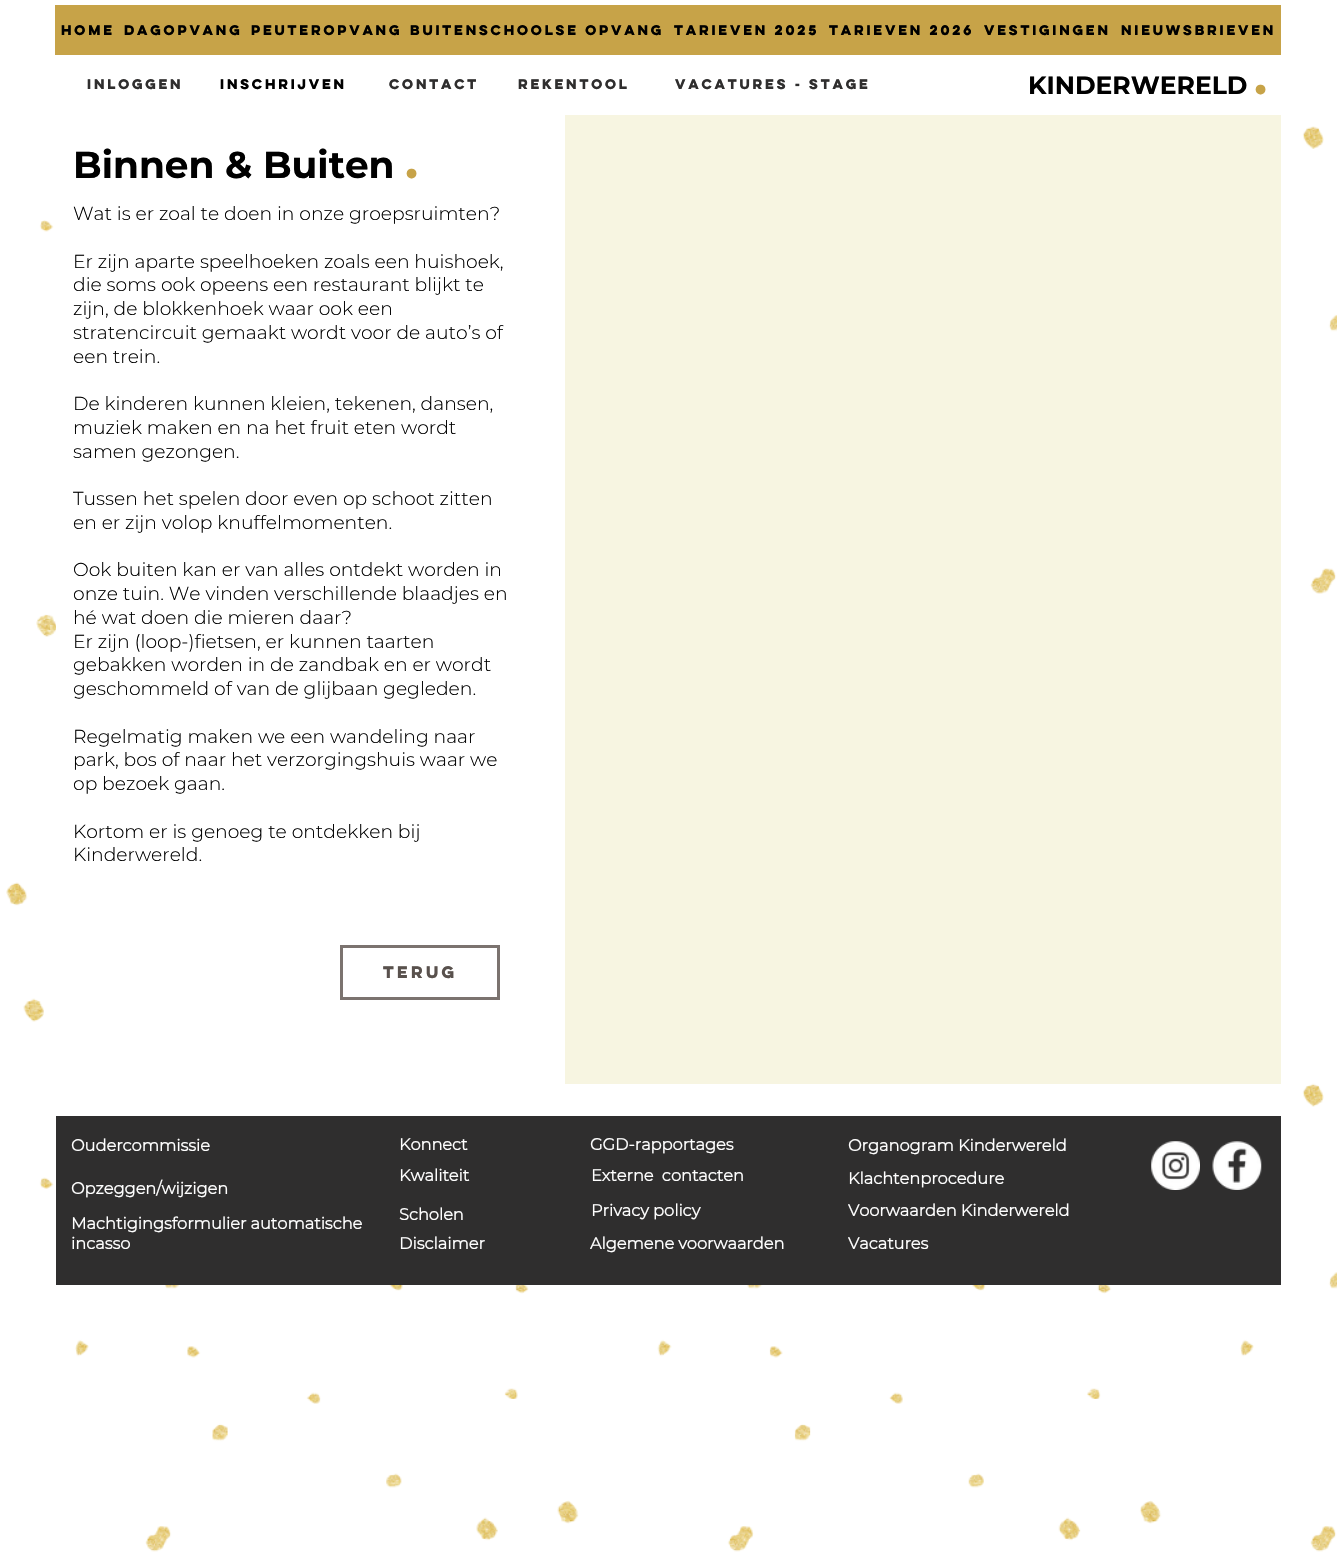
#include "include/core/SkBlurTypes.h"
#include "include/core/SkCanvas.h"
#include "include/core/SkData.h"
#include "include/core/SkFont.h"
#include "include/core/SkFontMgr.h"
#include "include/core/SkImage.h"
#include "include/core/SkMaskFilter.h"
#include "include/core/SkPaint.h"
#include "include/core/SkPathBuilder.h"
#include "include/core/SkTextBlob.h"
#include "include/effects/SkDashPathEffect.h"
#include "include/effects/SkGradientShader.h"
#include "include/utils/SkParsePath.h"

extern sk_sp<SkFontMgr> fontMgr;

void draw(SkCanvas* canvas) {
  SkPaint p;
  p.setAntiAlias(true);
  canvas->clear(SK_ColorWHITE);
  p.setColor(SkColorSetRGB(199, 163, 72));
  canvas->drawRect(SkRect::MakeLTRB(55, 5, 1281, 55), p);
  canvas->drawImageRect(SkImages::DeferredFromEncodedData(SkData::MakeFromFileName("images/3.png")), SkRect::MakeLTRB(6, 126, 1337, 1552), SkSamplingOptions());
  p.setColor(SK_ColorWHITE);
  canvas->drawRect(SkRect::MakeLTRB(56, 126, 1281, 1109), p);
  p.setStyle(SkPaint::kStroke_Style);
  p.setStrokeWidth(3);
  p.setColor(SkColorSetRGB(123, 115, 111));
  canvas->drawRect(SkRect::MakeLTRB(341.5f, 946.5f, 498.5f, 998.5f), p);
  p.setStyle(SkPaint::kFill_Style);
  p.setColor(SkColorSetRGB(247, 245, 225));
  canvas->drawRect(SkRect::MakeLTRB(565, 115, 1281, 1084), p);
  p.setColor(SkColorSetRGB(47, 46, 46));
  canvas->drawRect(SkRect::MakeLTRB(56, 1116, 1281, 1285), p);
  canvas->drawImageRect(SkImages::DeferredFromEncodedData(SkData::MakeFromFileName("images/1.png")), SkRect::MakeLTRB(1151, 1141, 1200, 1190), SkSamplingOptions());
  canvas->drawImageRect(SkImages::DeferredFromEncodedData(SkData::MakeFromFileName("images/2.png")), SkRect::MakeLTRB(1212, 1141, 1262, 1190), SkSamplingOptions());
  SkFont font1(fontMgr->matchFamilyStyle("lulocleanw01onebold", SkFontStyle::Bold()), 12.5f);
  font1.setSubpixel(true);
  p.setColor(SK_ColorBLACK);
  canvas->drawString("Home", 61, 35, font1, p);
  canvas->drawString("Dagopvang", 124, 35, font1, p);
  canvas->drawString("peuteropvang", 251, 35, font1, p);
  canvas->drawString("Buitenschoolse opvang", 410, 35, font1, p);
  canvas->drawString("Tarieven 2025", 674, 35, font1, p);
  canvas->drawString("Tarieven 2026", 829, 35, font1, p);
  canvas->drawString("vestigingen", 984, 35, font1, p);
  canvas->drawString("nieuwsbrieven", 1121, 35, font1, p);
  p.setColor(SkColorSetRGB(47, 46, 46));
  canvas->drawString("inloggen", 87, 89, font1, p);
  p.setColor(SK_ColorBLACK);
  canvas->drawString("inschrijven", 220, 89, font1, p);
  p.setColor(SkColorSetRGB(47, 46, 46));
  canvas->drawString("contact", 389, 89, font1, p);
  canvas->drawString("Rekentool", 518, 89, font1, p);
  canvas->drawString("Vacatures - stage", 675, 89, font1, p);
  SkFont font2(fontMgr->matchFamilyStyle("Montserrat", SkFontStyle::Bold()), 25);
  font2.setSubpixel(true);
  p.setColor(SK_ColorBLACK);
  canvas->drawString("KINDERWERELD", 1028, 94, font2, p);
  SkFont font3(fontMgr->matchFamilyStyle("Montserrat", SkFontStyle::Bold()), 50);
  font3.setSubpixel(true);
  p.setColor(SkColorSetRGB(199, 163, 72));
  canvas->drawString(".", 1254, 94, font3, p);
  SkFont font4(fontMgr->matchFamilyStyle("Montserrat", SkFontStyle::Bold()), 37.5f);
  font4.setSubpixel(true);
  p.setColor(SK_ColorBLACK);
  canvas->drawString("Binnen & Buiten", 73, 178, font4, p);
  p.setColor(SkColorSetRGB(199, 163, 72));
  canvas->drawString(".", 405, 178, font3, p);
  SkFont font5(fontMgr->matchFamilyStyle("Montserrat", SkFontStyle(300, SkFontStyle::kNormal_Width, SkFontStyle::kUpright_Slant)), 18.75f);
  font5.setSubpixel(true);
  p.setColor(SK_ColorBLACK);
  canvas->drawString("Wat is er zoal te doen in onze groepsruimten?", 73, 220, font5, p);
  canvas->drawString("Er zijn aparte speelhoeken zoals een huishoek,", 73, 268, font5, p);
  canvas->drawString("die soms ook opeens een restaurant blijkt te", 73, 291, font5, p);
  canvas->drawString("zijn, de blokkenhoek waar ook een", 73, 315, font5, p);
  canvas->drawString("stratencircuit gemaakt wordt voor de auto’s of", 73, 339, font5, p);
  canvas->drawString("een trein.", 73, 363, font5, p);
  canvas->drawString("De kinderen kunnen kleien, tekenen, dansen,", 73, 410, font5, p);
  canvas->drawString("muziek maken en na het fruit eten wordt", 73, 434, font5, p);
  canvas->drawString("samen gezongen.", 73, 458, font5, p);
  canvas->drawString("Tussen het spelen door even op schoot zitten", 73, 505, font5, p);
  canvas->drawString("en er zijn volop knuffelmomenten.", 73, 529, font5, p);
  canvas->drawString("Ook buiten kan er van alles ontdekt worden in", 73, 576, font5, p);
  canvas->drawString("onze tuin. We vinden verschillende blaadjes en", 73, 600, font5, p);
  canvas->drawString("hé wat doen die mieren daar?", 73, 624, font5, p);
  canvas->drawString("Er zijn (loop-)fietsen, er kunnen taarten", 73, 648, font5, p);
  canvas->drawString("gebakken worden in de zandbak en er wordt", 73, 671, font5, p);
  canvas->drawString("geschommeld of van de glijbaan gegleden.", 73, 695, font5, p);
  canvas->drawString("Regelmatig maken we een wandeling naar", 73, 743, font5, p);
  canvas->drawString("park, bos of naar het verzorgingshuis waar we", 73, 766, font5, p);
  canvas->drawString("op bezoek gaan.", 73, 790, font5, p);
  canvas->drawString("Kortom er is genoeg te ontdekken bij", 73, 838, font5, p);
  canvas->drawString("Kinderwereld.", 73, 861, font5, p);
  SkFont font6(fontMgr->matchFamilyStyle("lulocleanw01onebold", SkFontStyle::Bold()), 15);
  font6.setSubpixel(true);
  p.setColor(SkColorSetRGB(89, 81, 77));
  canvas->drawString("terug", 383, 978, font6, p);
  SkFont font7(fontMgr->matchFamilyStyle("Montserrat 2", SkFontStyle::Bold()), 16.25f);
  font7.setSubpixel(true);
  p.setColor(SK_ColorWHITE);
  canvas->drawString("Oudercommissie", 71, 1151, font7, p);
  canvas->drawString("Konnect", 399, 1150, font7, p);
  canvas->drawString("GGD-rapportages", 590, 1150, font7, p);
  canvas->drawString("Organogram Kinderwereld", 848, 1151, font7, p);
  canvas->drawString("Opzeggen/wijzigen", 71, 1194, font7, p);
  canvas->drawString("Kwaliteit", 399, 1181, font7, p);
  canvas->drawString("Externe  contacten", 591, 1181, font7, p);
  canvas->drawString("Klachtenprocedure", 848, 1184, font7, p);
  canvas->drawString("Scholen", 399, 1220, font7, p);
  canvas->drawString("Privacy policy", 591, 1216, font7, p);
  canvas->drawString("Voorwaarden Kinderwereld", 848, 1216, font7, p);
  canvas->drawString("Machtigingsformulier automatische", 71, 1229, font7, p);
  canvas->drawString("incasso", 71, 1249, font7, p);
  canvas->drawString("Disclaimer", 399, 1249, font7, p);
  canvas->drawString("Algemene voorwaarden", 590, 1249, font7, p);
  canvas->drawString("Vacatures", 848, 1249, font7, p);
}
